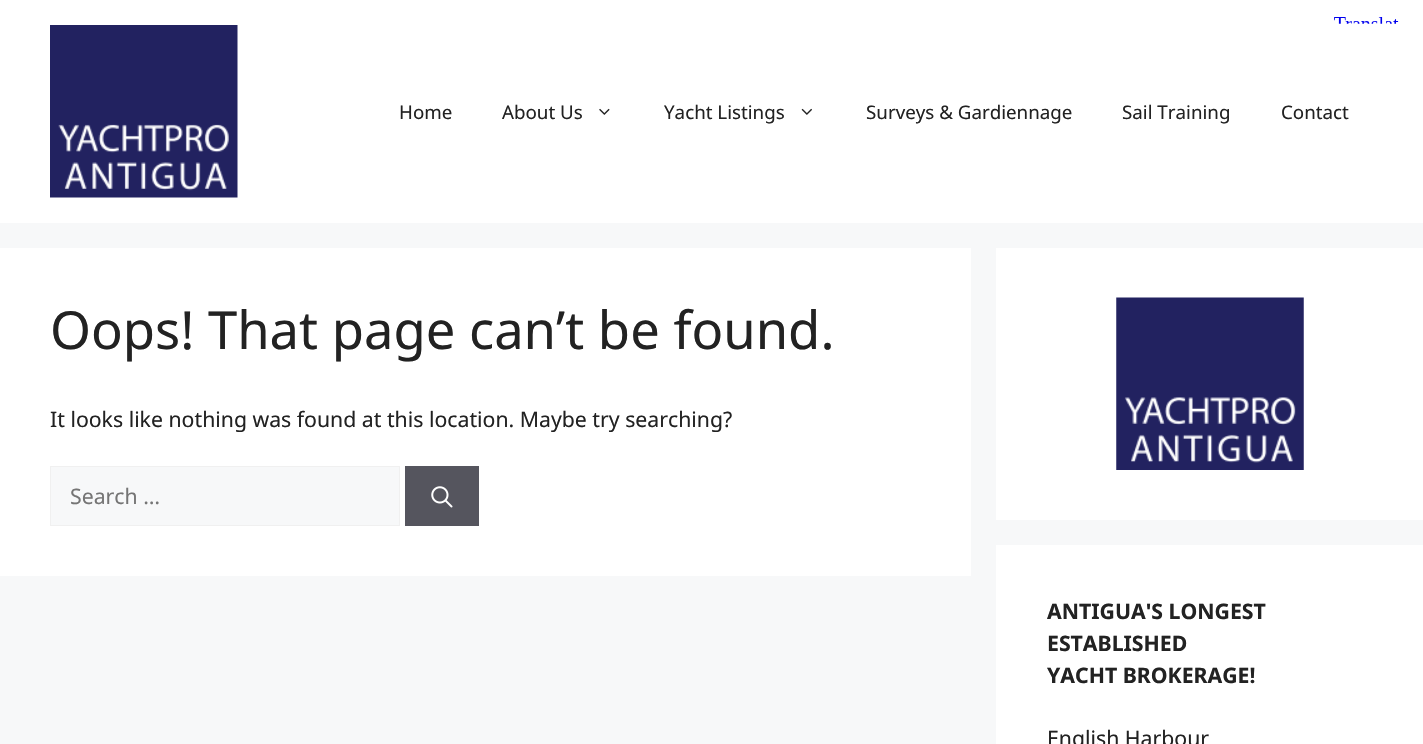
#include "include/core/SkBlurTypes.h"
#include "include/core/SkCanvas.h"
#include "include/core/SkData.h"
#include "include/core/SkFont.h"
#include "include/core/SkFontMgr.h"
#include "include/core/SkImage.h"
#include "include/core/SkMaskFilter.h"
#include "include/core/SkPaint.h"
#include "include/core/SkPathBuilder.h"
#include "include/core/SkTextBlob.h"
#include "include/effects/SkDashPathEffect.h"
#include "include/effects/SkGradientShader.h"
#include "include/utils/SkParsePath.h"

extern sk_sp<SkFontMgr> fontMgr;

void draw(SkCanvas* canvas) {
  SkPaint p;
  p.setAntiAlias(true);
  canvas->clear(SkColorSetRGB(247, 248, 249));
  p.setColor(SK_ColorWHITE);
  canvas->drawRect(SkRect::MakeLTRB(0, 0, 1423, 223), p);
  canvas->drawImageRect(SkImages::DeferredFromEncodedData(SkData::MakeFromFileName("images/1.png")), SkRect::MakeLTRB(1334, 17, 1399, 24), SkSamplingOptions());
  canvas->drawImageRect(SkImages::DeferredFromEncodedData(SkData::MakeFromFileName("images/2.png")), SkRect::MakeLTRB(50, 25, 238, 198), SkSamplingOptions());
  canvas->drawImageRect(SkImages::DeferredFromEncodedData(SkData::MakeFromFileName("images/3.png")), SkRect::MakeLTRB(599, 108, 610, 115), SkSamplingOptions());
  canvas->drawImageRect(SkImages::DeferredFromEncodedData(SkData::MakeFromFileName("images/4.png")), SkRect::MakeLTRB(801, 108, 812, 115), SkSamplingOptions());
  canvas->drawRect(SkRect::MakeLTRB(0, 248, 971, 576), p);
  p.setColor(SkColorSetRGB(247, 248, 249));
  canvas->drawRect(SkRect::MakeLTRB(50.5f, 466.5f, 399.5f, 525.5f), p);
  p.setStyle(SkPaint::kStroke_Style);
  p.setStrokeWidth(1);
  p.setColor(SkColorSetRGB(240, 240, 240));
  canvas->drawRect(SkRect::MakeLTRB(50.5f, 466.5f, 399.5f, 525.5f), p);
  p.setStyle(SkPaint::kFill_Style);
  p.setColor(SkColorSetRGB(85, 85, 94));
  canvas->drawRect(SkRect::MakeLTRB(405, 466, 479, 526), p);
  canvas->drawImageRect(SkImages::DeferredFromEncodedData(SkData::MakeFromFileName("images/5.png")), SkRect::MakeLTRB(431, 486, 453, 508), SkSamplingOptions());
  p.setColor(SK_ColorWHITE);
  canvas->drawRect(SkRect::MakeLTRB(996, 248, 1423, 520), p);
  canvas->drawImageRect(SkImages::DeferredFromEncodedData(SkData::MakeFromFileName("images/6.png")), SkRect::MakeLTRB(1116, 297, 1304, 470), SkSamplingOptions());
  canvas->drawRect(SkRect::MakeLTRB(996, 545, 1423, 744), p);
  SkFont font1(fontMgr->matchFamilyStyle("Noto Sans", SkFontStyle::Normal()), 18.75f);
  font1.setSubpixel(true);
  p.setColor(SkColorSetRGB(34, 34, 34));
  canvas->drawString("Home", 399, 119, font1, p);
  canvas->drawString("About Us", 502, 119, font1, p);
  canvas->drawString("Yacht Listings", 664, 119, font1, p);
  canvas->drawString("Surveys & Gardiennage", 866, 119, font1, p);
  canvas->drawString("Sail Training", 1122, 119, font1, p);
  canvas->drawString("Contact", 1281, 119, font1, p);
  SkFont font2(fontMgr->matchFamilyStyle("Noto Sans", SkFontStyle::Normal()), 52.5f);
  font2.setSubpixel(true);
  canvas->drawString("Oops! That page can’t be found.", 50, 349, font2, p);
  SkFont font3(fontMgr->matchFamilyStyle("Noto Sans", SkFontStyle::Normal()), 21.25f);
  font3.setSubpixel(true);
  canvas->drawString("It looks like nothing was found at this location. Maybe try searching?", 50, 427, font3, p);
  p.setColor(SkColorSetRGB(117, 117, 117));
  canvas->drawString("Search …", 70, 504, font3, p);
  SkFont font4(fontMgr->matchFamilyStyle("Noto Sans", SkFontStyle::Bold()), 21.25f);
  font4.setSubpixel(true);
  p.setColor(SkColorSetRGB(34, 34, 34));
  canvas->drawString("ANTIGUA'S LONGEST", 1047, 619, font4, p);
  canvas->drawString("ESTABLISHED", 1047, 651, font4, p);
  canvas->drawString("YACHT BROKERAGE!", 1047, 683, font4, p);
  canvas->drawString("English Harbour", 1047, 746, font3, p);
}
